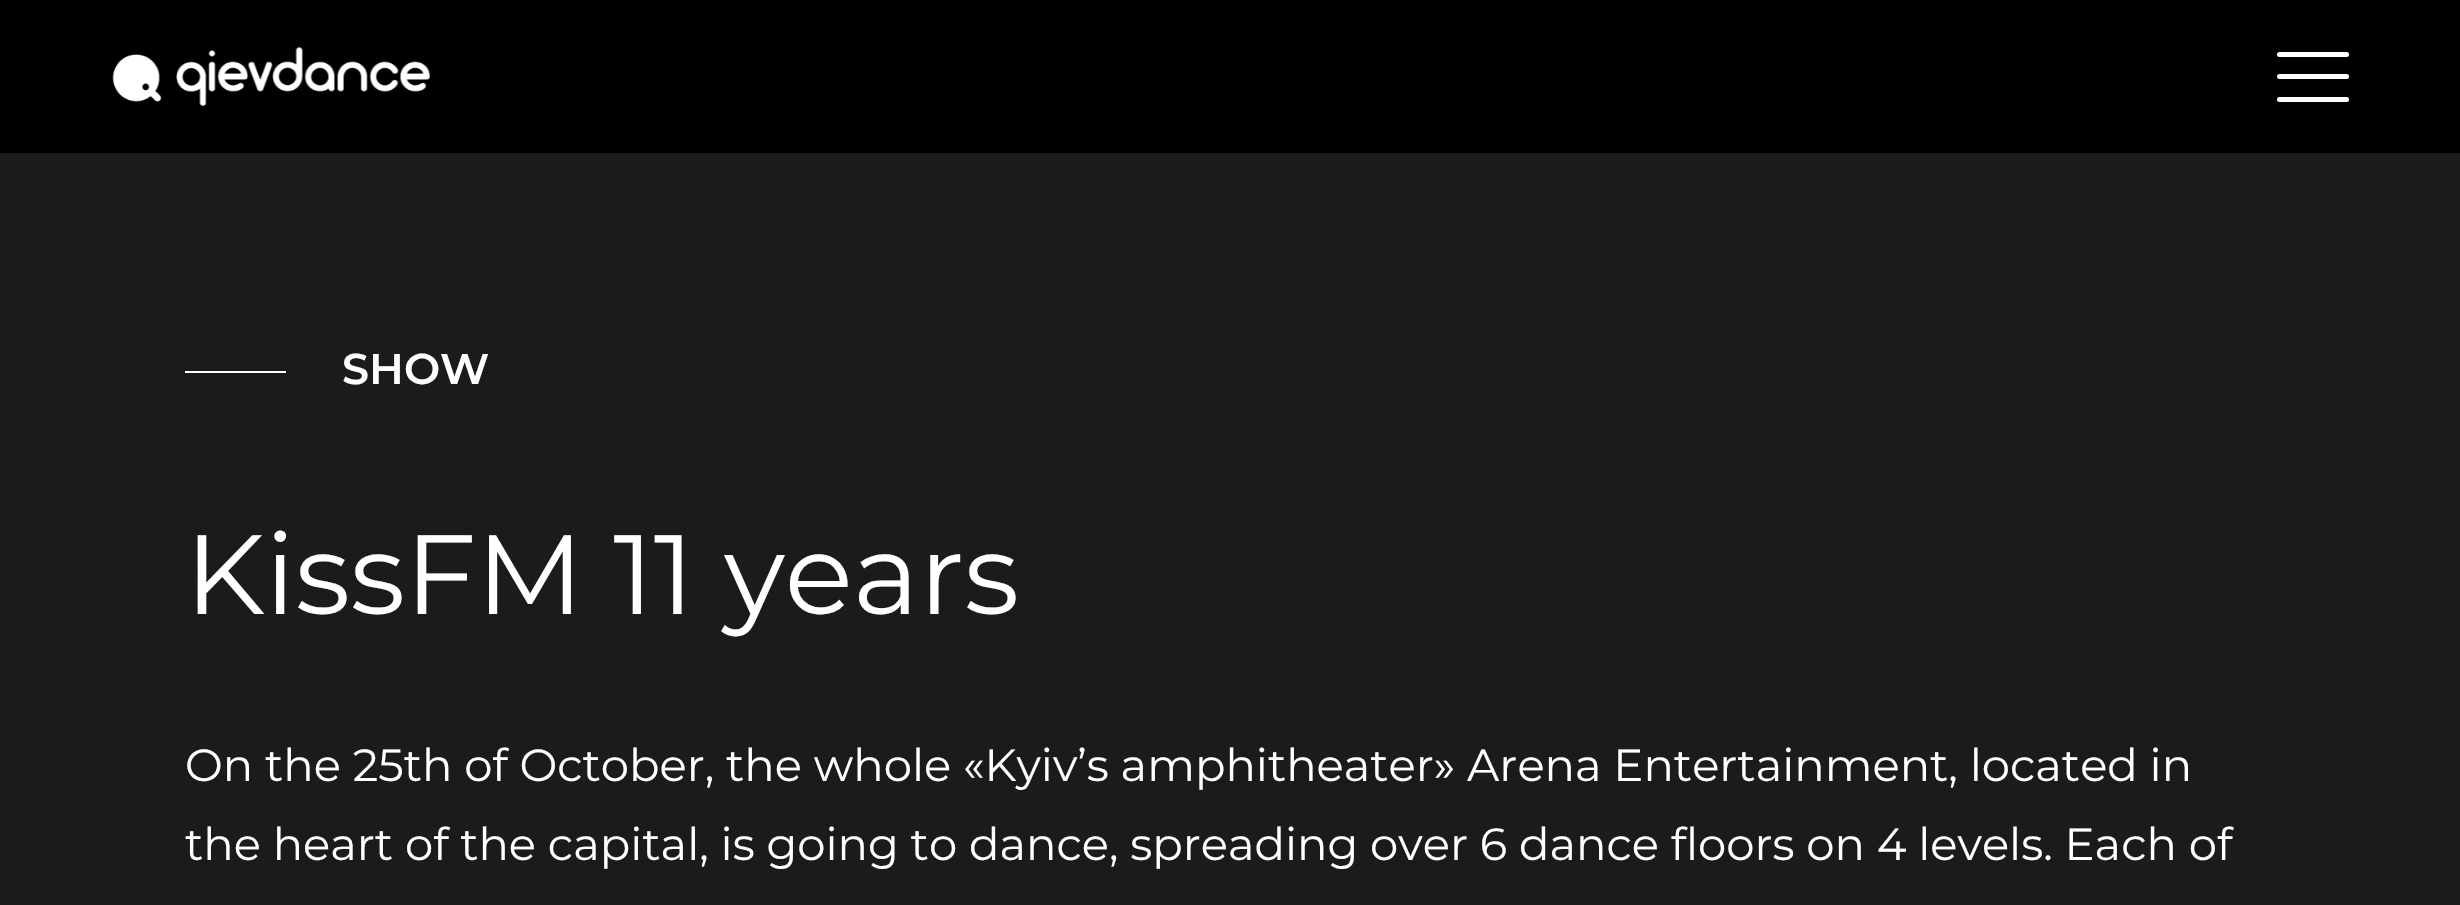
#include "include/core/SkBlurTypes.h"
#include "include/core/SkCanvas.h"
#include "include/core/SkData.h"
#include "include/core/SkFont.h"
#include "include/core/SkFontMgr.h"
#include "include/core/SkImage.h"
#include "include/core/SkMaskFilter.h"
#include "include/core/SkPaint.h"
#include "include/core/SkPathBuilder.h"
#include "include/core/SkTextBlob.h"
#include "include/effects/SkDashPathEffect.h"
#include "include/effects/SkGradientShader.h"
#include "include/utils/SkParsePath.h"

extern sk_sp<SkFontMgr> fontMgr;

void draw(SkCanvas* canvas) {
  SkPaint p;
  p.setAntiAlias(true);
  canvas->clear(SkColorSetRGB(27, 27, 27));
  p.setColor(SK_ColorBLACK);
  canvas->drawRect(SkRect::MakeLTRB(0, 0, 2460, 153), p);
  canvas->drawImageRect(SkImages::DeferredFromEncodedData(SkData::MakeFromFileName("images/1.png")), SkRect::MakeLTRB(112, 47, 430, 106), SkSamplingOptions());
  p.setColor(SK_ColorWHITE);
  canvas->drawRoundRect(SkRect::MakeLTRB(2277, 52, 2349, 57), 2.5f, 2.5f, p);
  canvas->drawRoundRect(SkRect::MakeLTRB(2277, 74, 2349, 79), 2.5f, 2.5f, p);
  canvas->drawRoundRect(SkRect::MakeLTRB(2277, 97, 2349, 102), 2.5f, 2.5f, p);
  canvas->drawRect(SkRect::MakeLTRB(185, 371, 286, 373), p);
  SkFont font1(fontMgr->matchFamilyStyle("Montserrat", SkFontStyle(600, SkFontStyle::kNormal_Width, SkFontStyle::kUpright_Slant)), 43);
  font1.setSubpixel(true);
  canvas->drawString("SHOW", 342, 384, font1, p);
  SkFont font2(fontMgr->matchFamilyStyle("Montserrat", SkFontStyle::Normal()), 112.5f);
  font2.setSubpixel(true);
  canvas->drawString("KissFM 11 years", 185, 614, font2, p);
  SkFont font3(fontMgr->matchFamilyStyle("Montserrat", SkFontStyle::Normal()), 45);
  font3.setSubpixel(true);
  canvas->drawString("On the 25th of October, the whole «Kyiv’s amphitheater» Arena Entertainment, located in", 185, 781, font3, p);
  canvas->drawString("the heart of the capital, is going to dance, spreading over 6 dance floors on 4 levels. Each of", 185, 860, font3, p);
}
